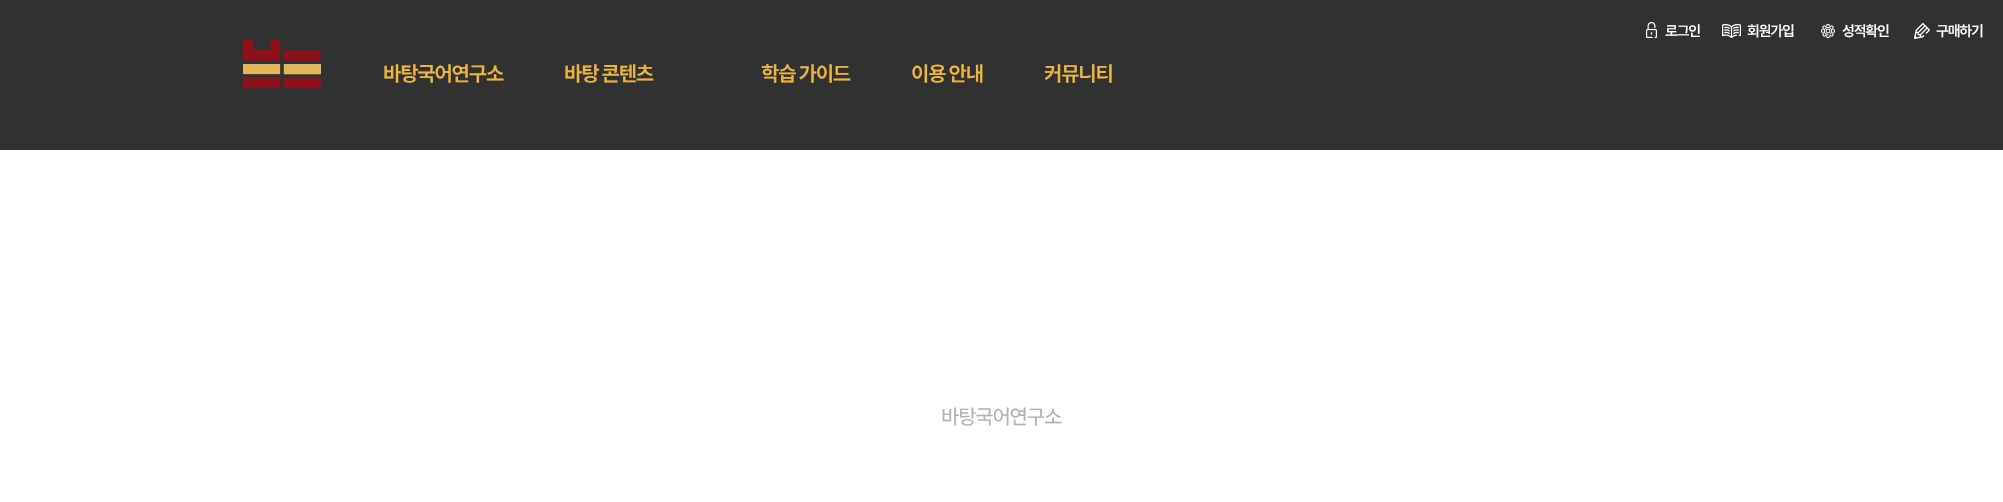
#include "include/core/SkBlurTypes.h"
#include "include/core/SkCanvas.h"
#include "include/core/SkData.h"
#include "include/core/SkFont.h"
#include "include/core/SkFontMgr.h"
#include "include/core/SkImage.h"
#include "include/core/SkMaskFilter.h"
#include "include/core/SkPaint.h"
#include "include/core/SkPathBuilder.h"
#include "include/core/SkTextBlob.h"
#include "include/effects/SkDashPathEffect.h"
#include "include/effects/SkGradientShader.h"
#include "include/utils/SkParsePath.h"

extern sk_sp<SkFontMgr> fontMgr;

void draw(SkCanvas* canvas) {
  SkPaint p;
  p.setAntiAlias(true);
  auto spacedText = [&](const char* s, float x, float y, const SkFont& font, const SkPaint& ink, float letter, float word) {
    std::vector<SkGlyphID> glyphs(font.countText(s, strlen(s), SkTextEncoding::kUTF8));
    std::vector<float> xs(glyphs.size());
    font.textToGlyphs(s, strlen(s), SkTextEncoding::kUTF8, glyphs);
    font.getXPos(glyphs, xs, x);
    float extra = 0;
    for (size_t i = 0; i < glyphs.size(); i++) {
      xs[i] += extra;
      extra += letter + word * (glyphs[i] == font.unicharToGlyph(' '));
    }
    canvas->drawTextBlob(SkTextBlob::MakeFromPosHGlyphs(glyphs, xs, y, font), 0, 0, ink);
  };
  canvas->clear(SK_ColorWHITE);
  p.setColor(SkColorSetRGB(49, 49, 49));
  canvas->drawRect(SkRect::MakeLTRB(0, 0, 2003, 150), p);
  canvas->drawImageRect(SkImages::DeferredFromEncodedData(SkData::MakeFromFileName("images/1.png")), SkRect::MakeLTRB(1646, 22, 1657, 38), SkSamplingOptions());
  canvas->drawImageRect(SkImages::DeferredFromEncodedData(SkData::MakeFromFileName("images/2.png")), SkRect::MakeLTRB(1722, 24, 1741, 38), SkSamplingOptions());
  canvas->drawImageRect(SkImages::DeferredFromEncodedData(SkData::MakeFromFileName("images/3.png")), SkRect::MakeLTRB(1821, 24, 1835, 38), SkSamplingOptions());
  canvas->drawImageRect(SkImages::DeferredFromEncodedData(SkData::MakeFromFileName("images/4.png")), SkRect::MakeLTRB(1914, 23, 1930, 39), SkSamplingOptions());
  canvas->drawImageRect(SkImages::DeferredFromEncodedData(SkData::MakeFromFileName("images/5.png")), SkRect::MakeLTRB(243, 40, 321, 88), SkSamplingOptions());
  SkFont font1(fontMgr->matchFamilyStyle("Noto Sans KR", SkFontStyle(500, SkFontStyle::kNormal_Width, SkFontStyle::kUpright_Slant)), 14);
  font1.setSubpixel(true);
  p.setColor(SK_ColorWHITE);
  spacedText("로그인", 1665, 36, font1, p, -1.25f, 0);
  spacedText("회원가입", 1747, 36, font1, p, -1.25f, 0);
  spacedText("성적확인", 1842, 36, font1, p, -1.25f, 0);
  spacedText("구매하기", 1936, 36, font1, p, -1.25f, 0);
  SkFont font2(fontMgr->matchFamilyStyle("Noto Sans KR", SkFontStyle(600, SkFontStyle::kNormal_Width, SkFontStyle::kUpright_Slant)), 20);
  font2.setSubpixel(true);
  p.setColor(SkColorSetRGB(236, 181, 66));
  spacedText("바탕국어연구소", 383, 81, font2, p, -1.25f, 0);
  spacedText("바탕 콘텐츠", 564, 81, font2, p, -1.25f, 0);
  spacedText("학습 가이드", 761, 81, font2, p, -1.25f, 0);
  spacedText("이용 안내", 911, 81, font2, p, -1.25f, 0);
  spacedText("커뮤니티", 1044, 81, font2, p, -1.25f, 0);
  SkFont font3(fontMgr->matchFamilyStyle("Noto Sans KR", SkFontStyle::Normal()), 20);
  font3.setSubpixel(true);
  p.setColor(SkColorSetRGB(179, 178, 179));
  spacedText("바탕국어연구소", 941, 424, font3, p, -1.25f, 0);
}
